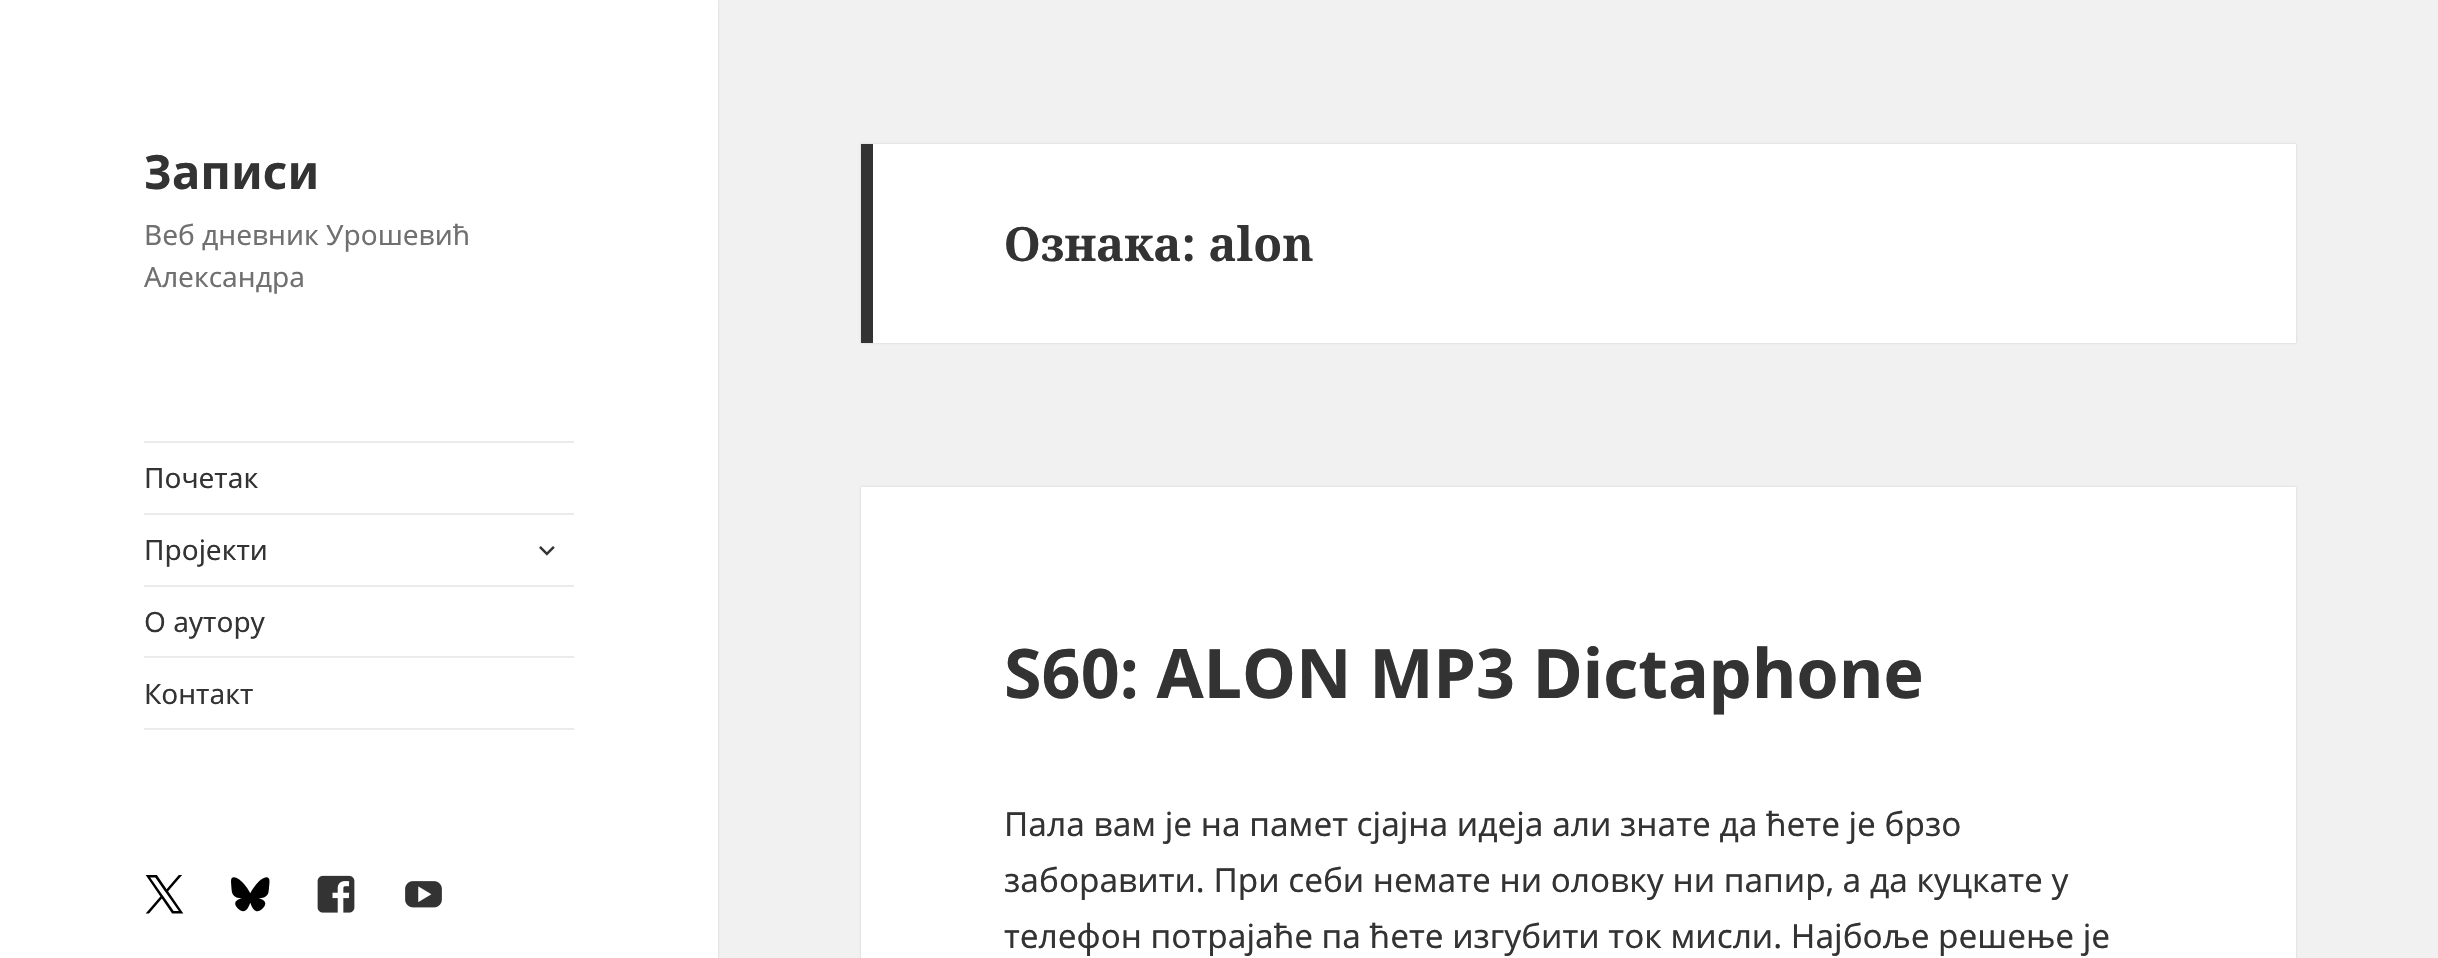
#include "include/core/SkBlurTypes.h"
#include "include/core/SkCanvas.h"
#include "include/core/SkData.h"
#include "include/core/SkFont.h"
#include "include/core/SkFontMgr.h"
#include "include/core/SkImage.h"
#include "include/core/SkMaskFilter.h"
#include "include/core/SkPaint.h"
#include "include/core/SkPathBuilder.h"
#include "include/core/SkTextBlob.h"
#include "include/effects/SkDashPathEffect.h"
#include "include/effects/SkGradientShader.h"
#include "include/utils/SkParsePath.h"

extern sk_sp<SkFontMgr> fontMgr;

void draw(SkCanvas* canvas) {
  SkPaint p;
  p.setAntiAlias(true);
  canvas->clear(SkColorSetRGB(241, 241, 241));
  p.setColor(SkColorSetARGB(38, 0, 0, 0));
  p.setMaskFilter(SkMaskFilter::MakeBlur(kNormal_SkBlurStyle, 1));
  canvas->drawRect(SkRect::MakeLTRB(0, 0, 718, 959), p);
  p.setMaskFilter(nullptr);
  p.setColor(SK_ColorWHITE);
  canvas->drawRect(SkRect::MakeLTRB(0, 0, 718, 958), p);
  p.setColor(SkColorSetRGB(235, 235, 235));
  canvas->drawRect(SkRect::MakeLTRB(144, 441, 574, 443), p);
  canvas->drawRect(SkRect::MakeLTRB(144, 728, 574, 730), p);
  canvas->drawRect(SkRect::MakeLTRB(144, 513, 574, 515), p);
  canvas->drawImageRect(SkImages::DeferredFromEncodedData(SkData::MakeFromFileName("images/1.png")), SkRect::MakeLTRB(539, 546, 555, 556), SkSamplingOptions());
  canvas->drawRect(SkRect::MakeLTRB(144, 585, 574, 587), p);
  canvas->drawRect(SkRect::MakeLTRB(144, 656, 574, 658), p);
  canvas->drawImageRect(SkImages::DeferredFromEncodedData(SkData::MakeFromFileName("images/2.png")), SkRect::MakeLTRB(145, 875, 184, 914), SkSamplingOptions());
  canvas->drawImageRect(SkImages::DeferredFromEncodedData(SkData::MakeFromFileName("images/3.png")), SkRect::MakeLTRB(231, 877, 270, 912), SkSamplingOptions());
  canvas->drawImageRect(SkImages::DeferredFromEncodedData(SkData::MakeFromFileName("images/4.png")), SkRect::MakeLTRB(317, 875, 355, 913), SkSamplingOptions());
  canvas->drawImageRect(SkImages::DeferredFromEncodedData(SkData::MakeFromFileName("images/5.png")), SkRect::MakeLTRB(405, 881, 442, 908), SkSamplingOptions());
  p.setColor(SkColorSetARGB(38, 0, 0, 0));
  p.setMaskFilter(SkMaskFilter::MakeBlur(kNormal_SkBlurStyle, 1));
  canvas->drawRect(SkRect::MakeLTRB(861, 144, 2296, 343), p);
  p.setMaskFilter(nullptr);
  p.setColor(SK_ColorWHITE);
  canvas->drawRect(SkRect::MakeLTRB(873, 144, 2296, 343), p);
  p.setColor(SkColorSetRGB(51, 51, 51));
  canvas->drawRect(SkRect::MakeLTRB(861, 144, 873, 343), p);
  p.setColor(SkColorSetARGB(38, 0, 0, 0));
  p.setMaskFilter(SkMaskFilter::MakeBlur(kNormal_SkBlurStyle, 1));
  canvas->drawRect(SkRect::MakeLTRB(861, 487, 2296, 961), p);
  p.setMaskFilter(nullptr);
  p.setColor(SK_ColorWHITE);
  canvas->drawRect(SkRect::MakeLTRB(861, 487, 2296, 958), p);
  SkFont font1(fontMgr->matchFamilyStyle("Noto Sans", SkFontStyle::Bold()), 47.25f);
  font1.setSubpixel(true);
  p.setColor(SkColorSetRGB(51, 51, 51));
  canvas->drawString("Записи", 144, 189, font1, p);
  SkFont font2(fontMgr->matchFamilyStyle("Noto Sans", SkFontStyle::Normal()), 28);
  font2.setSubpixel(true);
  p.setColor(SkColorSetRGB(112, 112, 112));
  canvas->drawString("Веб дневник Урошевић", 144, 245, font2, p);
  canvas->drawString("Александра", 144, 287, font2, p);
  p.setColor(SkColorSetRGB(51, 51, 51));
  canvas->drawString("Почетак", 144, 488, font2, p);
  canvas->drawString("Пројекти", 144, 560, font2, p);
  canvas->drawString("О аутору", 144, 632, font2, p);
  canvas->drawString("Контакт", 144, 704, font2, p);
  SkFont font3(fontMgr->matchFamilyStyle("Noto Serif", SkFontStyle::Bold()), 47.25f);
  font3.setSubpixel(true);
  canvas->drawString("Ознака: alon", 1004, 261, font3, p);
  SkFont font4(fontMgr->matchFamilyStyle("Noto Sans", SkFontStyle::Bold()), 68.25f);
  font4.setSubpixel(true);
  canvas->drawString("S60: ALON MP3 Dictaphone", 1004, 698, font4, p);
  SkFont font5(fontMgr->matchFamilyStyle("Noto Sans", SkFontStyle::Normal()), 33.25f);
  font5.setSubpixel(true);
  canvas->drawString("Пала вам је на памет сјајна идеја али знате да ћете је брзо", 1004, 836, font5, p);
  canvas->drawString("заборавити. При себи немате ни оловку ни папир, а да куцкате у", 1004, 892, font5, p);
  canvas->drawString("телефон потрајаће па ћете изгубити ток мисли. Најбоље решење је", 1004, 948, font5, p);
}
